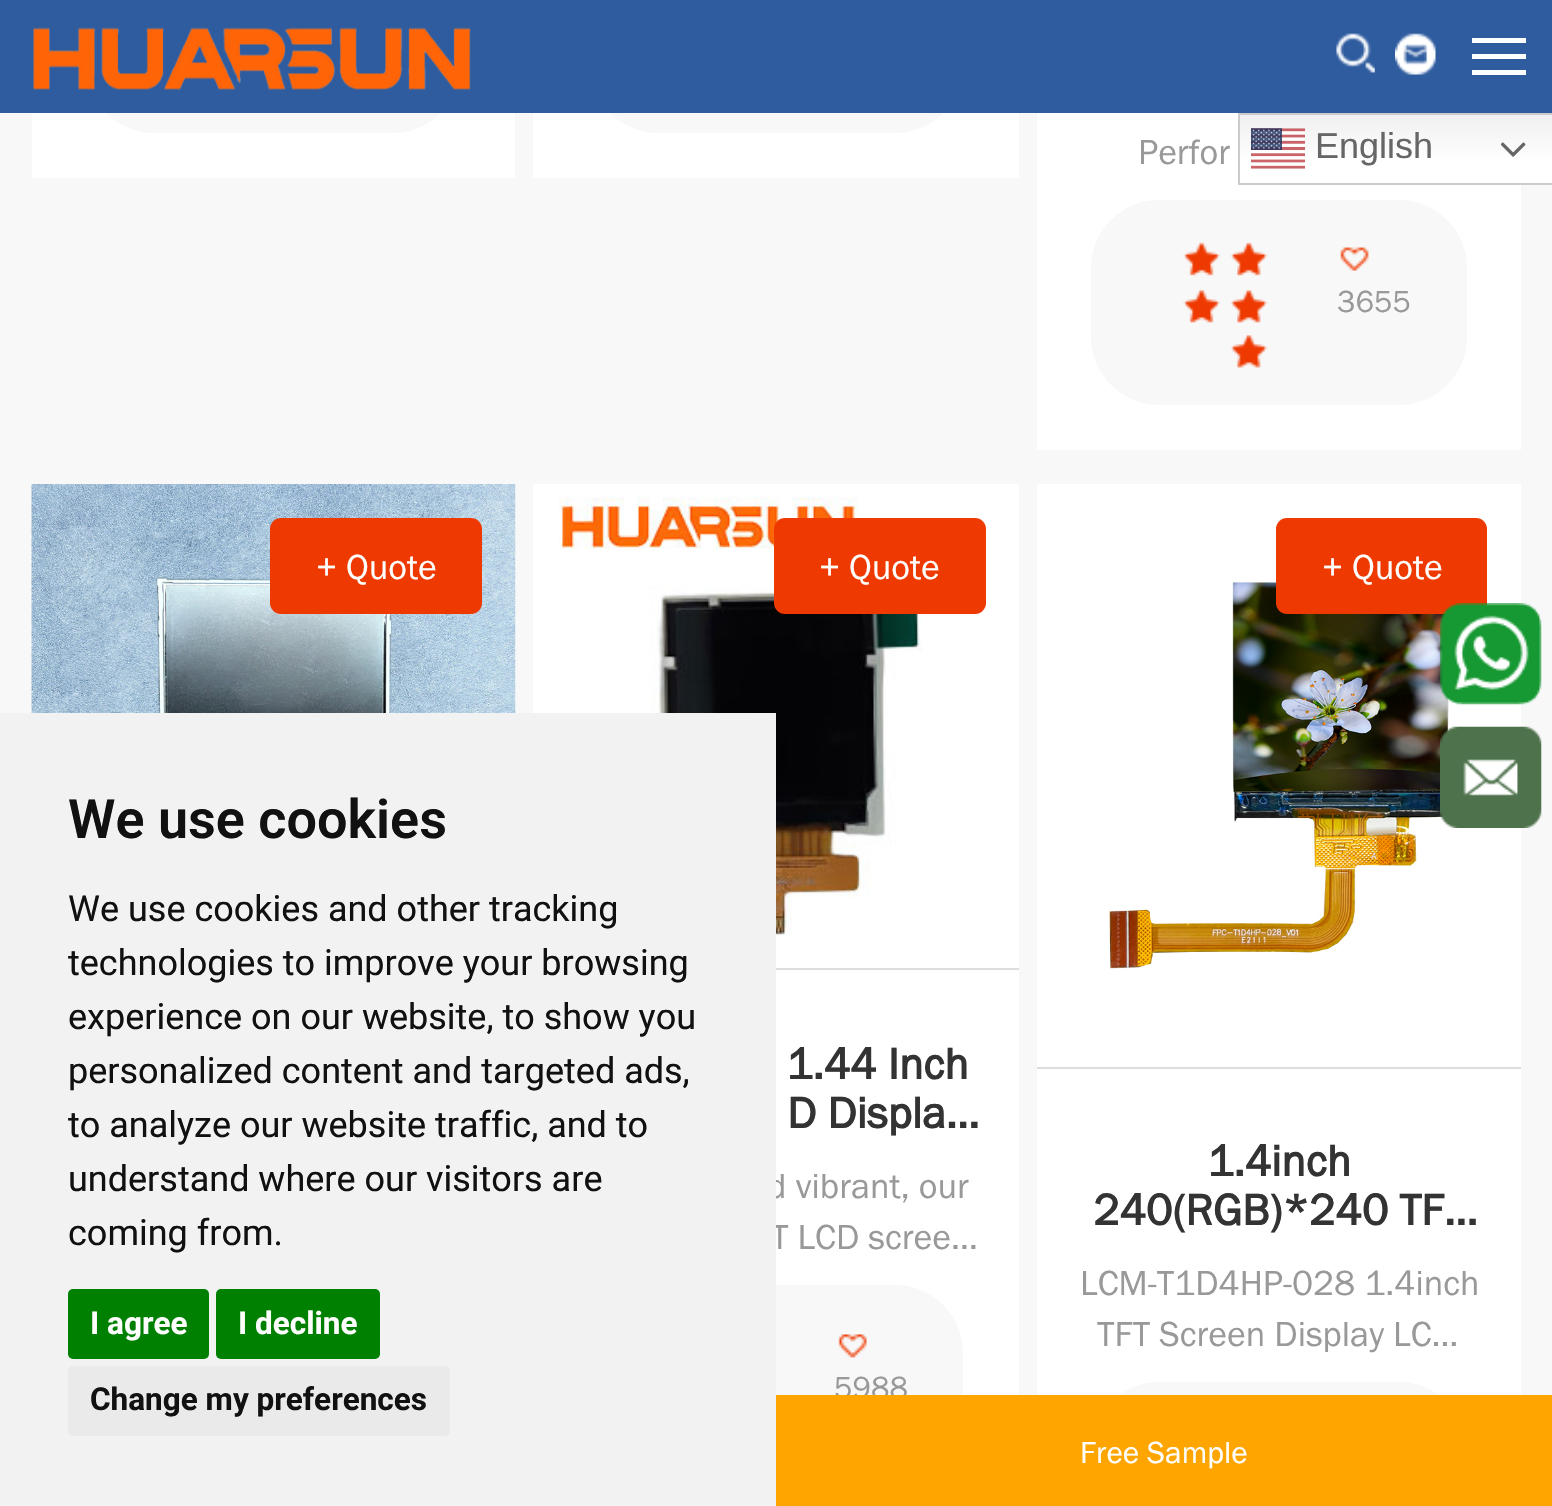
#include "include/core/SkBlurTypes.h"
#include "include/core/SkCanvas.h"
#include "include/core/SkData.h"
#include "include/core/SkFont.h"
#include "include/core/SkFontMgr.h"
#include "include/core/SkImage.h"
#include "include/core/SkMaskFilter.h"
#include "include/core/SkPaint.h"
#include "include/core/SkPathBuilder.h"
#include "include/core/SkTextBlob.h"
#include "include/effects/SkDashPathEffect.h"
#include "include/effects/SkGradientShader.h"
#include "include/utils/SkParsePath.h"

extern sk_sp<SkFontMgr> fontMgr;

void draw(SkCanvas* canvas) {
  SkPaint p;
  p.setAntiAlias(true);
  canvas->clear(SkColorSetRGB(248, 248, 248));
  p.setColor(SK_ColorWHITE);
  canvas->drawRect(SkRect::MakeLTRB(32, 113, 515, 178), p);
  p.setColor(SkColorSetRGB(248, 248, 248));
  canvas->drawRoundRect(SkRect::MakeLTRB(86, -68, 461, 133), 68, 68, p);
  p.setColor(SK_ColorWHITE);
  canvas->drawRect(SkRect::MakeLTRB(533, 113, 1019, 178), p);
  p.setColor(SkColorSetRGB(248, 248, 248));
  canvas->drawRoundRect(SkRect::MakeLTRB(590, -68, 963, 133), 68, 68, p);
  p.setColor(SkColorSetRGB(47, 92, 159));
  canvas->drawRect(SkRect::MakeLTRB(0, 0, 1552, 113), p);
  canvas->drawImageRect(SkImages::DeferredFromEncodedData(SkData::MakeFromFileName("images/1.png")), SkRect::MakeLTRB(33, 27, 471, 90), SkSamplingOptions());
  canvas->drawImageRect(SkImages::DeferredFromEncodedData(SkData::MakeFromFileName("images/2.png")), SkRect::MakeLTRB(1336, 33, 1375, 73), SkSamplingOptions());
  canvas->drawImageRect(SkImages::DeferredFromEncodedData(SkData::MakeFromFileName("images/3.png")), SkRect::MakeLTRB(1395, 33, 1436, 75), SkSamplingOptions());
  p.setColor(SK_ColorWHITE);
  canvas->drawRect(SkRect::MakeLTRB(1472, 38, 1526, 43), p);
  canvas->drawRect(SkRect::MakeLTRB(1472, 54, 1526, 59), p);
  canvas->drawRect(SkRect::MakeLTRB(1472, 70, 1526, 75), p);
  canvas->drawRect(SkRect::MakeLTRB(1037, 113, 1521, 450), p);
  {
    const SkColor colors[] = {SkColorSetRGB(239, 239, 239), SK_ColorWHITE};
    const float stops[] = {0, 0.7f};
    const SkPoint ends[] = {{1395, 112}, {1395, 185}};
    p.setShader(SkGradientShader::MakeLinear(ends, colors, stops, 2, SkTileMode::kClamp));
    p.setAlpha(255);
  }
  canvas->drawRect(SkRect::MakeLTRB(1240, 115, 1552, 183), p);
  p.setStyle(SkPaint::kStroke_Style);
  p.setStrokeWidth(2);
  p.setShader(nullptr);
  p.setColor(SkColorSetRGB(204, 204, 204));
  canvas->drawRect(SkRect::MakeLTRB(1239, 114, 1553, 184), p);
  canvas->drawImageRect(SkImages::DeferredFromEncodedData(SkData::MakeFromFileName("images/4.png")), SkRect::MakeLTRB(1251, 128, 1305, 169), SkSamplingOptions());
  canvas->drawImageRect(SkImages::DeferredFromEncodedData(SkData::MakeFromFileName("images/5.png")), SkRect::MakeLTRB(1501, 142, 1526, 157), SkSamplingOptions());
  p.setStyle(SkPaint::kFill_Style);
  p.setColor(SkColorSetRGB(248, 248, 248));
  canvas->drawRoundRect(SkRect::MakeLTRB(1091, 200, 1467, 405), 68, 68, p);
  canvas->drawImageRect(SkImages::DeferredFromEncodedData(SkData::MakeFromFileName("images/6.png")), SkRect::MakeLTRB(1183, 242, 1220, 276), SkSamplingOptions());
  canvas->drawImageRect(SkImages::DeferredFromEncodedData(SkData::MakeFromFileName("images/7.png")), SkRect::MakeLTRB(1230, 242, 1268, 276), SkSamplingOptions());
  canvas->drawImageRect(SkImages::DeferredFromEncodedData(SkData::MakeFromFileName("images/8.png")), SkRect::MakeLTRB(1183, 290, 1220, 323), SkSamplingOptions());
  canvas->drawImageRect(SkImages::DeferredFromEncodedData(SkData::MakeFromFileName("images/9.png")), SkRect::MakeLTRB(1230, 290, 1268, 323), SkSamplingOptions());
  canvas->drawImageRect(SkImages::DeferredFromEncodedData(SkData::MakeFromFileName("images/9.png")), SkRect::MakeLTRB(1230, 335, 1268, 368), SkSamplingOptions());
  canvas->drawImageRect(SkImages::DeferredFromEncodedData(SkData::MakeFromFileName("images/10.png")), SkRect::MakeLTRB(1340, 247, 1369, 271), SkSamplingOptions());
  canvas->drawImageRect(SkImages::DeferredFromEncodedData(SkData::MakeFromFileName("images/11.png")), SkRect::MakeLTRB(31, 484, 516, 713), SkSamplingOptions());
  p.setColor(SkColorSetRGB(238, 57, 0));
  canvas->drawRoundRect(SkRect::MakeLTRB(270, 518, 482, 614), 11, 11, p);
  canvas->drawImageRect(SkImages::DeferredFromEncodedData(SkData::MakeFromFileName("images/12.png")), SkRect::MakeLTRB(533, 484, 1019, 968), SkSamplingOptions());
  canvas->drawRoundRect(SkRect::MakeLTRB(774, 518, 986, 614), 11, 11, p);
  p.setColor(SkColorSetRGB(221, 221, 221));
  canvas->drawRect(SkRect::MakeLTRB(776, 968, 1019, 970), p);
  p.setColor(SK_ColorWHITE);
  canvas->drawRect(SkRect::MakeLTRB(776, 970, 1019, 1395), p);
  p.setColor(SkColorSetRGB(248, 248, 248));
  canvas->drawRoundRect(SkRect::MakeLTRB(590, 1285, 963, 1492), 68, 68, p);
  canvas->drawImageRect(SkImages::DeferredFromEncodedData(SkData::MakeFromFileName("images/13.png")), SkRect::MakeLTRB(838, 1334, 867, 1358), SkSamplingOptions());
  canvas->drawImageRect(SkImages::DeferredFromEncodedData(SkData::MakeFromFileName("images/14.png")), SkRect::MakeLTRB(1037, 484, 1521, 1067), SkSamplingOptions());
  p.setColor(SkColorSetRGB(238, 57, 0));
  canvas->drawRoundRect(SkRect::MakeLTRB(1276, 518, 1487, 614), 11, 11, p);
  p.setColor(SkColorSetRGB(221, 221, 221));
  canvas->drawRect(SkRect::MakeLTRB(1037, 1067, 1521, 1069), p);
  p.setColor(SK_ColorWHITE);
  canvas->drawRect(SkRect::MakeLTRB(1037, 1069, 1521, 1395), p);
  p.setColor(SkColorSetRGB(248, 248, 248));
  canvas->drawRoundRect(SkRect::MakeLTRB(1091, 1382, 1467, 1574), 68, 68, p);
  canvas->drawImageRect(SkImages::DeferredFromEncodedData(SkData::MakeFromFileName("images/15.png")), SkRect::MakeLTRB(1440, 603, 1542, 705), SkSamplingOptions());
  canvas->drawImageRect(SkImages::DeferredFromEncodedData(SkData::MakeFromFileName("images/16.png")), SkRect::MakeLTRB(1440, 726, 1542, 828), SkSamplingOptions());
  SkFont font1(fontMgr->matchFamilyStyle("Liberation Sans", SkFontStyle::Normal()), 36);
  font1.setSubpixel(true);
  p.setColor(SkColorSetRGB(102, 102, 102));
  canvas->drawString("English", 1315, 158, font1, p);
  SkFont font2(fontMgr->matchFamilyStyle("Franklin Gothic", SkFontStyle::Normal()), 36);
  font2.setSubpixel(true);
  p.setColor(SkColorSetRGB(153, 153, 153));
  canvas->drawString("Perfor", 1138, 164, font2, p);
  SkFont font3(fontMgr->matchFamilyStyle("Franklin Gothic", SkFontStyle::Normal()), 31.5f);
  font3.setSubpixel(true);
  canvas->drawString("3655", 1337, 312, font3, p);
  p.setColor(SK_ColorWHITE);
  canvas->drawString("+ Quote", 316, 579, font2, p);
  canvas->drawString("+ Quote", 819, 579, font2, p);
  SkFont font4(fontMgr->matchFamilyStyle("Franklin Gothic", SkFontStyle::Bold()), 45);
  font4.setSubpixel(true);
  p.setColor(SkColorSetRGB(51, 51, 51));
  canvas->drawString("1.44 Inch", 786, 1079, font4, p);
  canvas->drawString("D Displa…", 787, 1128, font4, p);
  p.setColor(SkColorSetRGB(153, 153, 153));
  canvas->drawString("d vibrant, our", 767, 1198, font2, p);
  canvas->drawString("T LCD scree…", 771, 1249, font2, p);
  canvas->drawString("5988", 834, 1398, font3, p);
  p.setColor(SK_ColorWHITE);
  canvas->drawString("+ Quote", 1322, 579, font2, p);
  p.setColor(SkColorSetRGB(51, 51, 51));
  canvas->drawString("1.4inch", 1207, 1176, font4, p);
  canvas->drawString("240(RGB)*240 TF…", 1093, 1225, font4, p);
  p.setColor(SkColorSetRGB(153, 153, 153));
  canvas->drawString("LCM-T1D4HP-028 1.4inch", 1080, 1295, font2, p);
  canvas->drawString("TFT Screen Display LC…", 1097, 1346, font2, p);
  p.setColor(SkColorSetRGB(242, 242, 242));
  canvas->drawRect(SkRect::MakeLTRB(0, 713, 776, 1506), p);
  SkFont font5(fontMgr->matchFamilyStyle("Roboto", SkFontStyle(600, SkFontStyle::kNormal_Width, SkFontStyle::kUpright_Slant)), 54);
  font5.setSubpixel(true);
  p.setColor(SkColorSetRGB(17, 17, 17));
  canvas->drawString("We use cookies", 68, 838, font5, p);
  SkFont font6(fontMgr->matchFamilyStyle("Roboto", SkFontStyle::Normal()), 36);
  font6.setSubpixel(true);
  canvas->drawString("We use cookies and other tracking", 68, 921, font6, p);
  canvas->drawString("technologies to improve your browsing", 68, 975, font6, p);
  canvas->drawString("experience on our website, to show you", 68, 1029, font6, p);
  canvas->drawString("personalized content and targeted ads,", 68, 1083, font6, p);
  canvas->drawString("to analyze our website traffic, and to", 68, 1137, font6, p);
  canvas->drawString("understand where our visitors are", 68, 1191, font6, p);
  canvas->drawString("coming from.", 68, 1245, font6, p);
  p.setColor(SkColorSetRGB(0, 128, 0));
  canvas->drawRoundRect(SkRect::MakeLTRB(68, 1289, 209, 1359), 5, 5, p);
  SkFont font7(fontMgr->matchFamilyStyle("Roboto", SkFontStyle::Bold()), 31.5f);
  font7.setSubpixel(true);
  p.setColor(SK_ColorWHITE);
  canvas->drawString("I agree", 90, 1334, font7, p);
  p.setColor(SkColorSetRGB(0, 128, 0));
  canvas->drawRoundRect(SkRect::MakeLTRB(216, 1289, 380, 1359), 5, 5, p);
  p.setColor(SK_ColorWHITE);
  canvas->drawString("I decline", 238, 1334, font7, p);
  p.setColor(SkColorSetRGB(234, 234, 234));
  canvas->drawRoundRect(SkRect::MakeLTRB(68, 1366, 450, 1436), 5, 5, p);
  p.setColor(SkColorSetRGB(17, 17, 17));
  canvas->drawString("Change my preferences", 90, 1410, font7, p);
  p.setColor(SkColorSetRGB(255, 165, 0));
  canvas->drawRect(SkRect::MakeLTRB(776, 1395, 1552, 1506), p);
  p.setColor(SK_ColorWHITE);
  canvas->drawString("Free Sample", 1080, 1463, font3, p);
}
